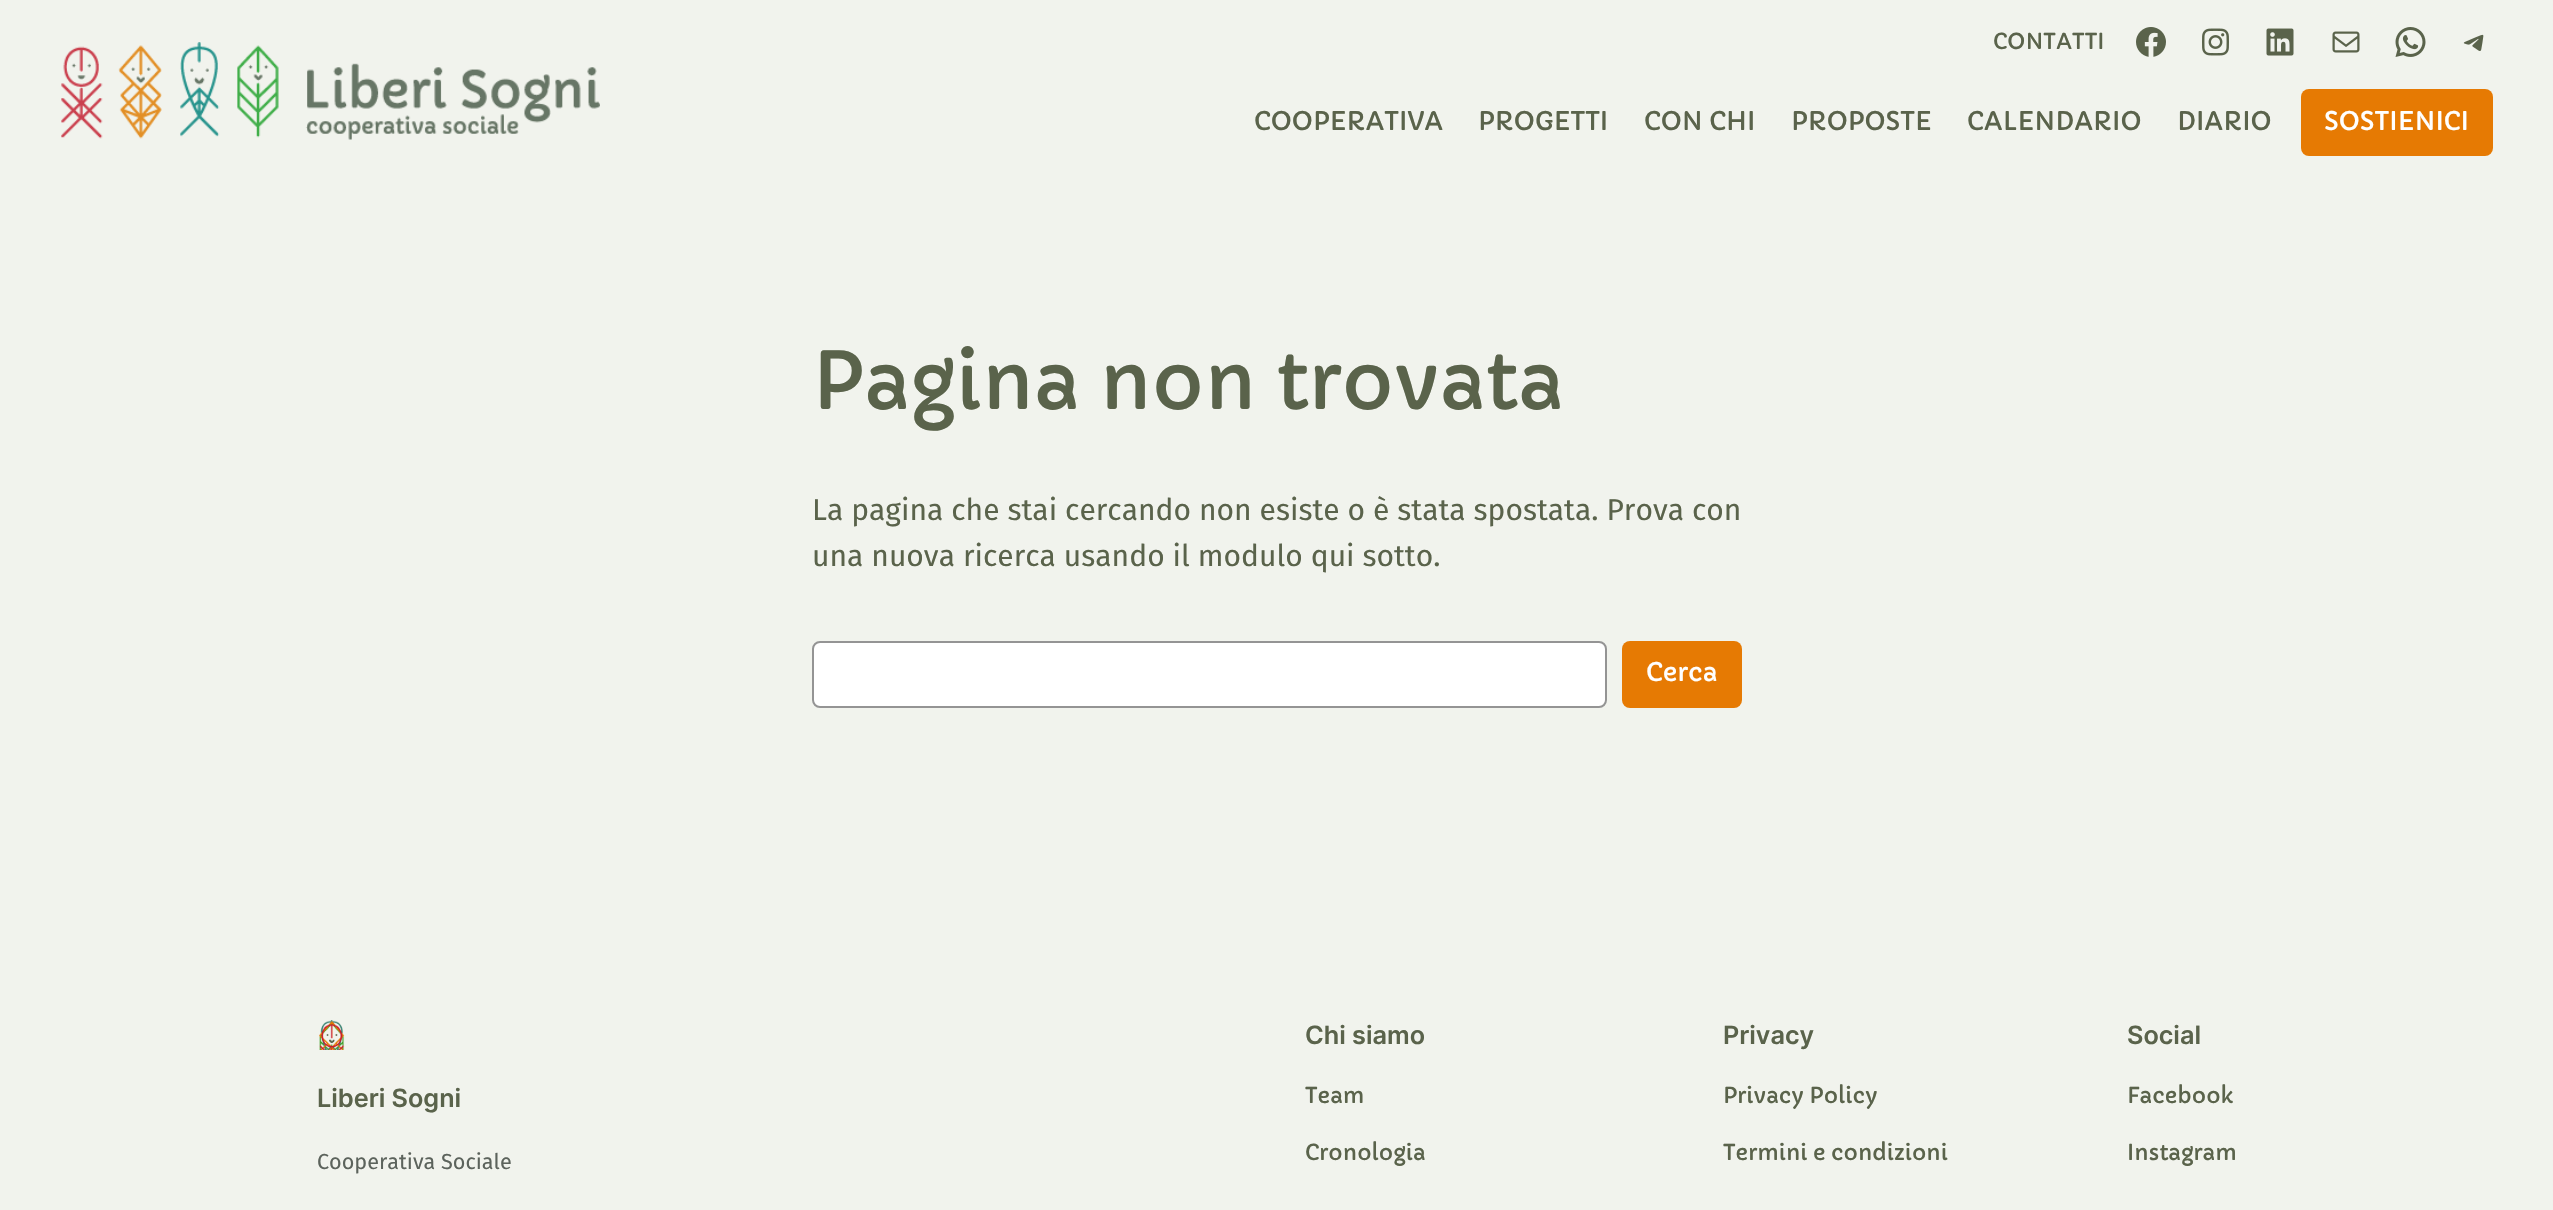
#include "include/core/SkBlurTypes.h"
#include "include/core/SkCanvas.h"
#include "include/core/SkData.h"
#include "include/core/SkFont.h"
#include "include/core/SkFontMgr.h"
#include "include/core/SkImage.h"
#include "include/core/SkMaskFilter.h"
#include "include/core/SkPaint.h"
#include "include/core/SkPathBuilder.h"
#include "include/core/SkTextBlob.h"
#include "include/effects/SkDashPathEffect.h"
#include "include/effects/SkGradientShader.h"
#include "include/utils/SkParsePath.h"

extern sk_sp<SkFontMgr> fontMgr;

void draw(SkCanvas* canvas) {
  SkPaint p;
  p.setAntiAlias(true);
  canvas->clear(SkColorSetRGB(241, 243, 237));
  canvas->drawImageRect(SkImages::DeferredFromEncodedData(SkData::MakeFromFileName("images/1.png")), SkRect::MakeLTRB(61, 42, 600, 140), SkSamplingOptions());
  canvas->drawImageRect(SkImages::DeferredFromEncodedData(SkData::MakeFromFileName("images/2.png")), SkRect::MakeLTRB(2136, 27, 2166, 57), SkSamplingOptions());
  canvas->drawImageRect(SkImages::DeferredFromEncodedData(SkData::MakeFromFileName("images/3.png")), SkRect::MakeLTRB(2202, 28, 2229, 56), SkSamplingOptions());
  canvas->drawImageRect(SkImages::DeferredFromEncodedData(SkData::MakeFromFileName("images/4.png")), SkRect::MakeLTRB(2266, 28, 2294, 56), SkSamplingOptions());
  canvas->drawImageRect(SkImages::DeferredFromEncodedData(SkData::MakeFromFileName("images/5.png")), SkRect::MakeLTRB(2332, 31, 2360, 53), SkSamplingOptions());
  canvas->drawImageRect(SkImages::DeferredFromEncodedData(SkData::MakeFromFileName("images/6.png")), SkRect::MakeLTRB(2395, 27, 2426, 57), SkSamplingOptions());
  canvas->drawImageRect(SkImages::DeferredFromEncodedData(SkData::MakeFromFileName("images/7.png")), SkRect::MakeLTRB(2463, 34, 2484, 51), SkSamplingOptions());
  p.setColor(SkColorSetRGB(230, 122, 3));
  canvas->drawRoundRect(SkRect::MakeLTRB(2301, 89, 2493, 156), 8, 8, p);
  p.setColor(SK_ColorWHITE);
  canvas->drawRoundRect(SkRect::MakeLTRB(813, 642, 1606, 707), 7, 7, p);
  p.setStyle(SkPaint::kStroke_Style);
  p.setStrokeWidth(2);
  p.setColor(SkColorSetRGB(148, 148, 148));
  canvas->drawRoundRect(SkRect::MakeLTRB(813, 642, 1606, 707), 7, 7, p);
  p.setStyle(SkPaint::kFill_Style);
  p.setColor(SkColorSetRGB(230, 122, 3));
  canvas->drawRoundRect(SkRect::MakeLTRB(1622, 641, 1742, 708), 8, 8, p);
  canvas->drawImageRect(SkImages::DeferredFromEncodedData(SkData::MakeFromFileName("images/8.png")), SkRect::MakeLTRB(319, 1020, 345, 1050), SkSamplingOptions());
  SkFont font1(fontMgr->matchFamilyStyle("Capriola", SkFontStyle::Normal()), 21.6f);
  font1.setSubpixel(true);
  p.setColor(SkColorSetRGB(90, 99, 75));
  canvas->drawString("CONTATTI", 1993, 49, font1, p);
  SkFont font2(fontMgr->matchFamilyStyle("Capriola", SkFontStyle::Normal()), 25.25f);
  font2.setSubpixel(true);
  canvas->drawString("COOPERATIVA", 1254, 130, font2, p);
  canvas->drawString("PROGETTI", 1478, 130, font2, p);
  canvas->drawString("CON CHI", 1644, 130, font2, p);
  canvas->drawString("PROPOSTE", 1791, 130, font2, p);
  canvas->drawString("CALENDARIO", 1967, 130, font2, p);
  canvas->drawString("DIARIO", 2177, 130, font2, p);
  p.setColor(SK_ColorWHITE);
  canvas->drawString("SOSTIENICI", 2324, 130, font2, p);
  SkFont font3(fontMgr->matchFamilyStyle("Capriola", SkFontStyle::Normal()), 78.5f);
  font3.setSubpixel(true);
  p.setColor(SkColorSetRGB(90, 99, 75));
  canvas->drawString("Pagina non trovata", 812, 409, font3, p);
  SkFont font4(fontMgr->matchFamilyStyle("Fira Sans", SkFontStyle::Normal()), 30);
  font4.setSubpixel(true);
  canvas->drawString("La pagina che stai cercando non esiste o è stata spostata. Prova con", 812, 520, font4, p);
  canvas->drawString("una nuova ricerca usando il modulo qui sotto.", 812, 566, font4, p);
  p.setColor(SK_ColorWHITE);
  canvas->drawString("Cerca", 1646, 681, font2, p);
  SkFont font5(fontMgr->matchFamilyStyle("Inter", SkFontStyle(600, SkFontStyle::kNormal_Width, SkFontStyle::kUpright_Slant)), 25.25f);
  font5.setSubpixel(true);
  p.setColor(SkColorSetRGB(90, 99, 75));
  canvas->drawString("Liberi Sogni", 317, 1107, font5, p);
  SkFont font6(fontMgr->matchFamilyStyle("Fira Sans", SkFontStyle::Normal()), 21.6f);
  font6.setSubpixel(true);
  p.setColor(SkColorSetRGB(92, 99, 92));
  canvas->drawString("Cooperativa Sociale", 317, 1169, font6, p);
  p.setColor(SkColorSetRGB(90, 99, 75));
  canvas->drawString("Chi siamo", 1305, 1044, font5, p);
  canvas->drawString("Team", 1305, 1103, font1, p);
  canvas->drawString("Cronologia", 1305, 1160, font1, p);
  canvas->drawString("Privacy", 1723, 1044, font5, p);
  canvas->drawString("Privacy Policy", 1723, 1103, font1, p);
  canvas->drawString("Termini e condizioni", 1723, 1160, font1, p);
  canvas->drawString("Social", 2127, 1044, font5, p);
  canvas->drawString("Facebook", 2127, 1103, font1, p);
  canvas->drawString("Instagram", 2127, 1160, font1, p);
}
